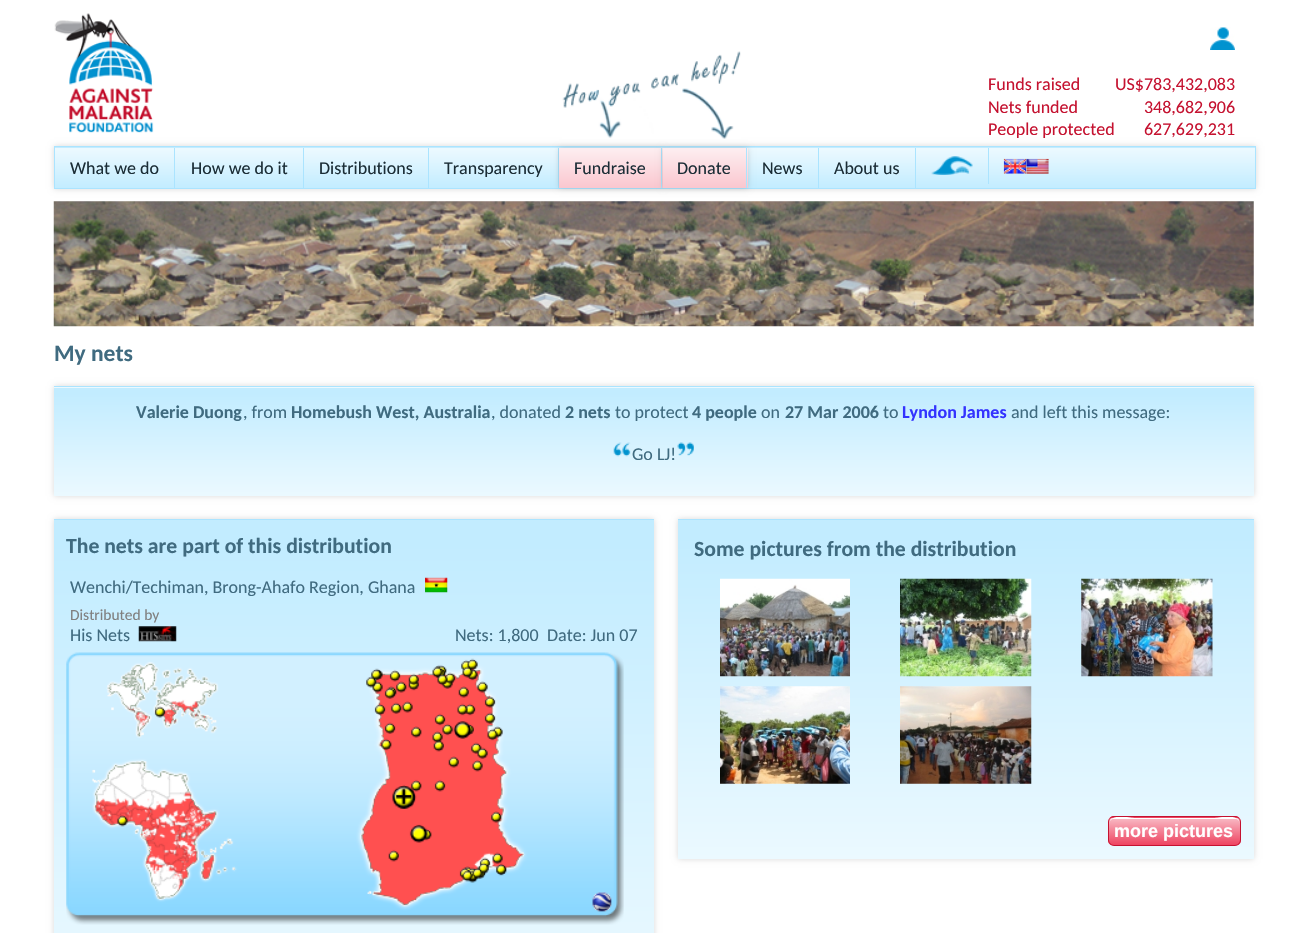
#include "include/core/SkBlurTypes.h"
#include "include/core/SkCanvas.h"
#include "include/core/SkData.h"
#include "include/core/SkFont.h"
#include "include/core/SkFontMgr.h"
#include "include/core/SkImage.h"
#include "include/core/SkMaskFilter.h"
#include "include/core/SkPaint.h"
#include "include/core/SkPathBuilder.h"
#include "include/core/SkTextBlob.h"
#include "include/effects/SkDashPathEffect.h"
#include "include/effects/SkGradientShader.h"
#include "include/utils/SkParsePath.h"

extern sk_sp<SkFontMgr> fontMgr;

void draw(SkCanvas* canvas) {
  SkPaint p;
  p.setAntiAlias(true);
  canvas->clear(SK_ColorWHITE);
  canvas->drawImageRect(SkImages::DeferredFromEncodedData(SkData::MakeFromFileName("images/1.png")), SkRect::MakeLTRB(54, 13, 154, 133), SkSamplingOptions());
  canvas->drawImageRect(SkImages::DeferredFromEncodedData(SkData::MakeFromFileName("images/2.png")), SkRect::MakeLTRB(1210, 27, 1235, 50), SkSamplingOptions());
  p.setColor(SkColorSetARGB(38, 0, 0, 0));
  p.setMaskFilter(SkMaskFilter::MakeBlur(kNormal_SkBlurStyle, 3));
  canvas->drawRect(SkRect::MakeLTRB(54, 146, 1256, 189), p);
  p.setMaskFilter(nullptr);
  {
    const SkColor colors[] = {SkColorSetRGB(235, 249, 255), SkColorSetRGB(194, 236, 255)};
    const float stops[] = {0.05f, 1};
    const SkPoint ends[] = {{55, 108}, {55, 148}};
    p.setShader(SkGradientShader::MakeLinear(ends, colors, stops, 2, SkTileMode::kClamp));
    p.setAlpha(255);
  }
  canvas->drawRect(SkRect::MakeLTRB(54, 147, 1256, 148), p);
  {
    const SkColor colors[] = {SkColorSetRGB(235, 249, 255), SkColorSetRGB(194, 236, 255)};
    const float stops[] = {0.05f, 1};
    const SkPoint ends[] = {{55, 148}, {55, 188}};
    p.setShader(SkGradientShader::MakeLinear(ends, colors, stops, 2, SkTileMode::kClamp));
    p.setAlpha(255);
  }
  canvas->drawRect(SkRect::MakeLTRB(55, 148, 1255, 188), p);
  p.setStyle(SkPaint::kStroke_Style);
  p.setStrokeWidth(1);
  p.setShader(nullptr);
  p.setColor(SkColorSetRGB(171, 228, 255));
  canvas->drawRect(SkRect::MakeLTRB(54.5f, 146.5f, 1255.5f, 188.5f), p);
  p.setStyle(SkPaint::kFill_Style);
  canvas->drawRect(SkRect::MakeLTRB(558, 148, 559, 188), p);
  p.setColor(SkColorSetARGB(38, 0, 0, 0));
  p.setMaskFilter(SkMaskFilter::MakeBlur(kNormal_SkBlurStyle, 3));
  canvas->drawRect(SkRect::MakeLTRB(559, 148, 663, 188), p);
  p.setMaskFilter(nullptr);
  {
    const SkColor colors[] = {SkColorSetRGB(253, 236, 239), SkColorSetRGB(250, 199, 207)};
    const float stops[] = {0.05f, 1};
    const SkPoint ends[] = {{559, 148}, {559, 188}};
    p.setShader(SkGradientShader::MakeLinear(ends, colors, stops, 2, SkTileMode::kClamp));
    p.setAlpha(255);
  }
  canvas->drawRect(SkRect::MakeLTRB(559, 148, 663, 188), p);
  p.setShader(nullptr);
  p.setColor(SkColorSetRGB(171, 228, 255));
  canvas->drawRect(SkRect::MakeLTRB(661, 148, 662, 188), p);
  p.setColor(SkColorSetARGB(38, 0, 0, 0));
  p.setMaskFilter(SkMaskFilter::MakeBlur(kNormal_SkBlurStyle, 3));
  canvas->drawRect(SkRect::MakeLTRB(663, 148, 748, 188), p);
  p.setMaskFilter(nullptr);
  canvas->drawImageRect(SkImages::DeferredFromEncodedData(SkData::MakeFromFileName("images/3.png")), SkRect::MakeLTRB(562, 51, 741, 139), SkSamplingOptions());
  p.setColor(SkColorSetRGB(171, 228, 255));
  canvas->drawRect(SkRect::MakeLTRB(174, 148, 175, 188), p);
  canvas->drawRect(SkRect::MakeLTRB(303, 148, 304, 188), p);
  canvas->drawRect(SkRect::MakeLTRB(428, 148, 429, 188), p);
  {
    const SkColor colors[] = {SkColorSetRGB(253, 236, 239), SkColorSetRGB(250, 199, 207)};
    const float stops[] = {0.05f, 1};
    const SkPoint ends[] = {{663, 148}, {663, 188}};
    p.setShader(SkGradientShader::MakeLinear(ends, colors, stops, 2, SkTileMode::kClamp));
    p.setAlpha(255);
  }
  canvas->drawRect(SkRect::MakeLTRB(663, 148, 748, 188), p);
  p.setShader(nullptr);
  p.setColor(SkColorSetRGB(171, 228, 255));
  canvas->drawRect(SkRect::MakeLTRB(746, 148, 747, 188), p);
  canvas->drawRect(SkRect::MakeLTRB(818, 148, 819, 188), p);
  canvas->drawRect(SkRect::MakeLTRB(915, 148, 916, 188), p);
  canvas->drawRect(SkRect::MakeLTRB(988, 148, 989, 184), p);
  canvas->drawImageRect(SkImages::DeferredFromEncodedData(SkData::MakeFromFileName("images/4.png")), SkRect::MakeLTRB(931, 156, 973, 175), SkSamplingOptions());
  canvas->drawImageRect(SkImages::DeferredFromEncodedData(SkData::MakeFromFileName("images/5.png")), SkRect::MakeLTRB(1003, 158, 1027, 174), SkSamplingOptions());
  canvas->drawImageRect(SkImages::DeferredFromEncodedData(SkData::MakeFromFileName("images/6.png")), SkRect::MakeLTRB(1026, 158, 1049, 174), SkSamplingOptions());
  canvas->drawImageRect(SkImages::DeferredFromEncodedData(SkData::MakeFromFileName("images/7.png")), SkRect::MakeLTRB(53, 201, 1254, 327), SkSamplingOptions());
  p.setColor(SkColorSetARGB(38, 0, 0, 0));
  p.setMaskFilter(SkMaskFilter::MakeBlur(kNormal_SkBlurStyle, 3));
  canvas->drawRect(SkRect::MakeLTRB(54, 386, 1254, 496), p);
  p.setMaskFilter(nullptr);
  {
    const SkColor colors[] = {SkColorSetRGB(194, 236, 255), SkColorSetRGB(235, 249, 255)};
    const float stops[] = {0.05f, 1};
    const SkPoint ends[] = {{54, 279}, {54, 388}};
    p.setShader(SkGradientShader::MakeLinear(ends, colors, stops, 2, SkTileMode::kClamp));
    p.setAlpha(255);
  }
  canvas->drawRect(SkRect::MakeLTRB(54, 387, 1254, 388), p);
  {
    const SkColor colors[] = {SkColorSetRGB(194, 236, 255), SkColorSetRGB(235, 249, 255)};
    const float stops[] = {0.05f, 1};
    const SkPoint ends[] = {{54, 388}, {54, 496}};
    p.setShader(SkGradientShader::MakeLinear(ends, colors, stops, 2, SkTileMode::kClamp));
    p.setAlpha(255);
  }
  canvas->drawRect(SkRect::MakeLTRB(54, 388, 1254, 496), p);
  p.setShader(nullptr);
  p.setColor(SkColorSetRGB(171, 228, 255));
  canvas->drawRect(SkRect::MakeLTRB(54, 386, 1254, 387), p);
  canvas->drawImageRect(SkImages::DeferredFromEncodedData(SkData::MakeFromFileName("images/8.png")), SkRect::MakeLTRB(613, 442, 631, 457), SkSamplingOptions());
  canvas->drawImageRect(SkImages::DeferredFromEncodedData(SkData::MakeFromFileName("images/9.png")), SkRect::MakeLTRB(677, 442, 694, 456), SkSamplingOptions());
  p.setColor(SkColorSetARGB(38, 0, 0, 0));
  p.setMaskFilter(SkMaskFilter::MakeBlur(kNormal_SkBlurStyle, 3));
  canvas->drawRect(SkRect::MakeLTRB(54, 519, 654, 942), p);
  p.setMaskFilter(nullptr);
  {
    const SkColor colors[] = {SkColorSetRGB(194, 236, 255), SkColorSetRGB(235, 249, 255)};
    const float stops[] = {0.05f, 1};
    const SkPoint ends[] = {{54, 520}, {54, 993}};
    p.setShader(SkGradientShader::MakeLinear(ends, colors, stops, 2, SkTileMode::kClamp));
    p.setAlpha(255);
  }
  canvas->drawRect(SkRect::MakeLTRB(54, 520, 654, 933), p);
  p.setShader(nullptr);
  p.setColor(SkColorSetRGB(171, 228, 255));
  canvas->drawRect(SkRect::MakeLTRB(54, 519, 654, 520), p);
  canvas->drawImageRect(SkImages::DeferredFromEncodedData(SkData::MakeFromFileName("images/10.png")), SkRect::MakeLTRB(425, 577, 448, 593), SkSamplingOptions());
  canvas->drawImageRect(SkImages::DeferredFromEncodedData(SkData::MakeFromFileName("images/11.png")), SkRect::MakeLTRB(138, 626, 177, 642), SkSamplingOptions());
  canvas->drawImageRect(SkImages::DeferredFromEncodedData(SkData::MakeFromFileName("images/12.png")), SkRect::MakeLTRB(66, 652, 624, 925), SkSamplingOptions());
  p.setColor(SkColorSetARGB(38, 0, 0, 0));
  p.setMaskFilter(SkMaskFilter::MakeBlur(kNormal_SkBlurStyle, 3));
  canvas->drawRect(SkRect::MakeLTRB(678, 519, 1254, 859), p);
  p.setMaskFilter(nullptr);
  {
    const SkColor colors[] = {SkColorSetRGB(194, 236, 255), SkColorSetRGB(235, 249, 255)};
    const float stops[] = {0.05f, 1};
    const SkPoint ends[] = {{678, 520}, {678, 859}};
    p.setShader(SkGradientShader::MakeLinear(ends, colors, stops, 2, SkTileMode::kClamp));
    p.setAlpha(255);
  }
  canvas->drawRect(SkRect::MakeLTRB(678, 520, 1254, 859), p);
  p.setShader(nullptr);
  p.setColor(SkColorSetRGB(171, 228, 255));
  canvas->drawRect(SkRect::MakeLTRB(678, 519, 1254, 520), p);
  canvas->drawImageRect(SkImages::DeferredFromEncodedData(SkData::MakeFromFileName("images/13.png")), SkRect::MakeLTRB(720, 578, 850, 677), SkSamplingOptions());
  canvas->drawImageRect(SkImages::DeferredFromEncodedData(SkData::MakeFromFileName("images/14.png")), SkRect::MakeLTRB(900, 578, 1032, 677), SkSamplingOptions());
  canvas->drawImageRect(SkImages::DeferredFromEncodedData(SkData::MakeFromFileName("images/15.png")), SkRect::MakeLTRB(1081, 578, 1213, 677), SkSamplingOptions());
  canvas->drawImageRect(SkImages::DeferredFromEncodedData(SkData::MakeFromFileName("images/16.png")), SkRect::MakeLTRB(720, 686, 850, 784), SkSamplingOptions());
  canvas->drawImageRect(SkImages::DeferredFromEncodedData(SkData::MakeFromFileName("images/17.png")), SkRect::MakeLTRB(900, 686, 1032, 784), SkSamplingOptions());
  canvas->save();
  canvas->clipPath(SkPathBuilder().moveTo(1114, 816).lineTo(1235, 816).cubicTo(1238.5f, 816, 1241, 818.5f, 1241, 822).lineTo(1241, 840).cubicTo(1241, 843.5f, 1238.5f, 846, 1235, 846).lineTo(1114, 846).cubicTo(1110.5f, 846, 1108, 843.5f, 1108, 840).lineTo(1108, 822).cubicTo(1108, 818.5f, 1110.5f, 816, 1114, 816).close().detach(), true);
  {
    const SkColor colors[] = {SkColorSetRGB(248, 180, 192), SkColorSetRGB(238, 68, 97)};
    const float stops[] = {0.05f, 1};
    const SkPoint ends[] = {{1109, 790}, {1109, 818}};
    p.setShader(SkGradientShader::MakeLinear(ends, colors, stops, 2, SkTileMode::kClamp));
    p.setAlpha(255);
  }
  canvas->drawRect(SkRect::MakeLTRB(1108, 816, 1241, 818), p);
  {
    const SkColor colors[] = {SkColorSetRGB(248, 180, 192), SkColorSetRGB(238, 68, 97)};
    const float stops[] = {0.05f, 1};
    const SkPoint ends[] = {{1109, 818}, {1109, 845}};
    p.setShader(SkGradientShader::MakeLinear(ends, colors, stops, 2, SkTileMode::kClamp));
    p.setAlpha(255);
  }
  canvas->drawRect(SkRect::MakeLTRB(1108, 818, 1241, 845), p);
  canvas->restore();
  p.setShader(nullptr);
  p.setColor(SK_ColorWHITE);
  canvas->drawPath(SkPathBuilder().moveTo(1114, 819).lineTo(1235, 819).cubicTo(1238, 819, 1240, 821, 1240, 824).cubicTo(1240, 813, 1219, 818, 1215, 818).lineTo(1134, 818).cubicTo(1130, 818, 1109, 813, 1109, 824).cubicTo(1109, 821, 1111, 819, 1114, 819).close().detach(), p);
  p.setStyle(SkPaint::kStroke_Style);
  p.setColor(SkColorSetRGB(197, 18, 48));
  canvas->drawRoundRect(SkRect::MakeLTRB(1108.5f, 816.5f, 1240.5f, 845.5f), 5.5f, 5.5f, p);
  SkFont font1(fontMgr->matchFamilyStyle("Carlito", SkFontStyle::Normal()), 18);
  font1.setSubpixel(true);
  p.setStyle(SkPaint::kFill_Style);
  canvas->drawString("Funds raised", 988, 90, font1, p);
  canvas->drawString("US$783,432,083", 1115, 90, font1, p);
  canvas->drawString("Nets funded", 988, 113, font1, p);
  canvas->drawString("348,682,906", 1144, 113, font1, p);
  canvas->drawString("People protected", 988, 135, font1, p);
  canvas->drawString("627,629,231", 1144, 135, font1, p);
  p.setColor(SkColorSetRGB(27, 45, 54));
  canvas->drawString("What we do", 70, 174, font1, p);
  canvas->drawString("How we do it", 191, 174, font1, p);
  canvas->drawString("Distributions", 319, 174, font1, p);
  canvas->drawString("Transparency", 444, 174, font1, p);
  canvas->drawString("Fundraise", 574, 174, font1, p);
  canvas->drawString("Donate", 677, 174, font1, p);
  canvas->drawString("News", 762, 174, font1, p);
  canvas->drawString("About us", 834, 174, font1, p);
  SkFont font2(fontMgr->matchFamilyStyle("Carlito", SkFontStyle::Bold()), 23.5f);
  font2.setSubpixel(true);
  p.setColor(SkColorSetRGB(64, 107, 128));
  canvas->drawString("My nets", 54, 361, font2, p);
  SkFont font3(fontMgr->matchFamilyStyle("Carlito", SkFontStyle::Bold()), 18);
  font3.setSubpixel(true);
  canvas->drawString("Valerie Duong", 136, 418, font3, p);
  canvas->drawString(", from", 243, 418, font1, p);
  canvas->drawString("Homebush West, Australia", 291, 418, font3, p);
  canvas->drawString(", donated", 491, 418, font1, p);
  canvas->drawString("2 nets", 565, 418, font3, p);
  canvas->drawString("to protect", 615, 418, font1, p);
  canvas->drawString("4 people", 692, 418, font3, p);
  canvas->drawString("on", 761, 418, font1, p);
  canvas->drawString("27 Mar 2006", 785, 418, font3, p);
  canvas->drawString("to", 883, 418, font1, p);
  p.setColor(SkColorSetRGB(51, 51, 255));
  canvas->drawString("Lyndon James", 902, 418, font3, p);
  p.setColor(SkColorSetRGB(64, 107, 128));
  canvas->drawString("and left this message:", 1011, 418, font1, p);
  canvas->drawString("Go LJ!", 632, 460, font1, p);
  SkFont font4(fontMgr->matchFamilyStyle("Carlito", SkFontStyle::Bold()), 21.7f);
  font4.setSubpixel(true);
  canvas->drawString("The nets are part of this distribution", 66, 553, font4, p);
  canvas->drawString("Wenchi/Techiman, Brong-Ahafo Region, Ghana", 70, 593, font1, p);
  SkFont font5(fontMgr->matchFamilyStyle("Carlito", SkFontStyle::Normal()), 15.5f);
  font5.setSubpixel(true);
  p.setColor(SkColorSetRGB(128, 128, 128));
  canvas->drawString("Distributed by", 70, 620, font5, p);
  p.setColor(SkColorSetRGB(64, 107, 128));
  canvas->drawString("His Nets", 70, 641, font1, p);
  canvas->drawString("Nets: 1,800", 455, 641, font1, p);
  canvas->drawString("Date: Jun 07", 547, 641, font1, p);
  canvas->drawString("Some pictures from the distribution", 694, 556, font4, p);
  SkFont font6(fontMgr->matchFamilyStyle("Liberation Sans", SkFontStyle::Bold()), 18);
  font6.setSubpixel(true);
  p.setColor(SK_ColorWHITE);
  canvas->drawString("more pictures", 1114, 837, font6, p);
}
